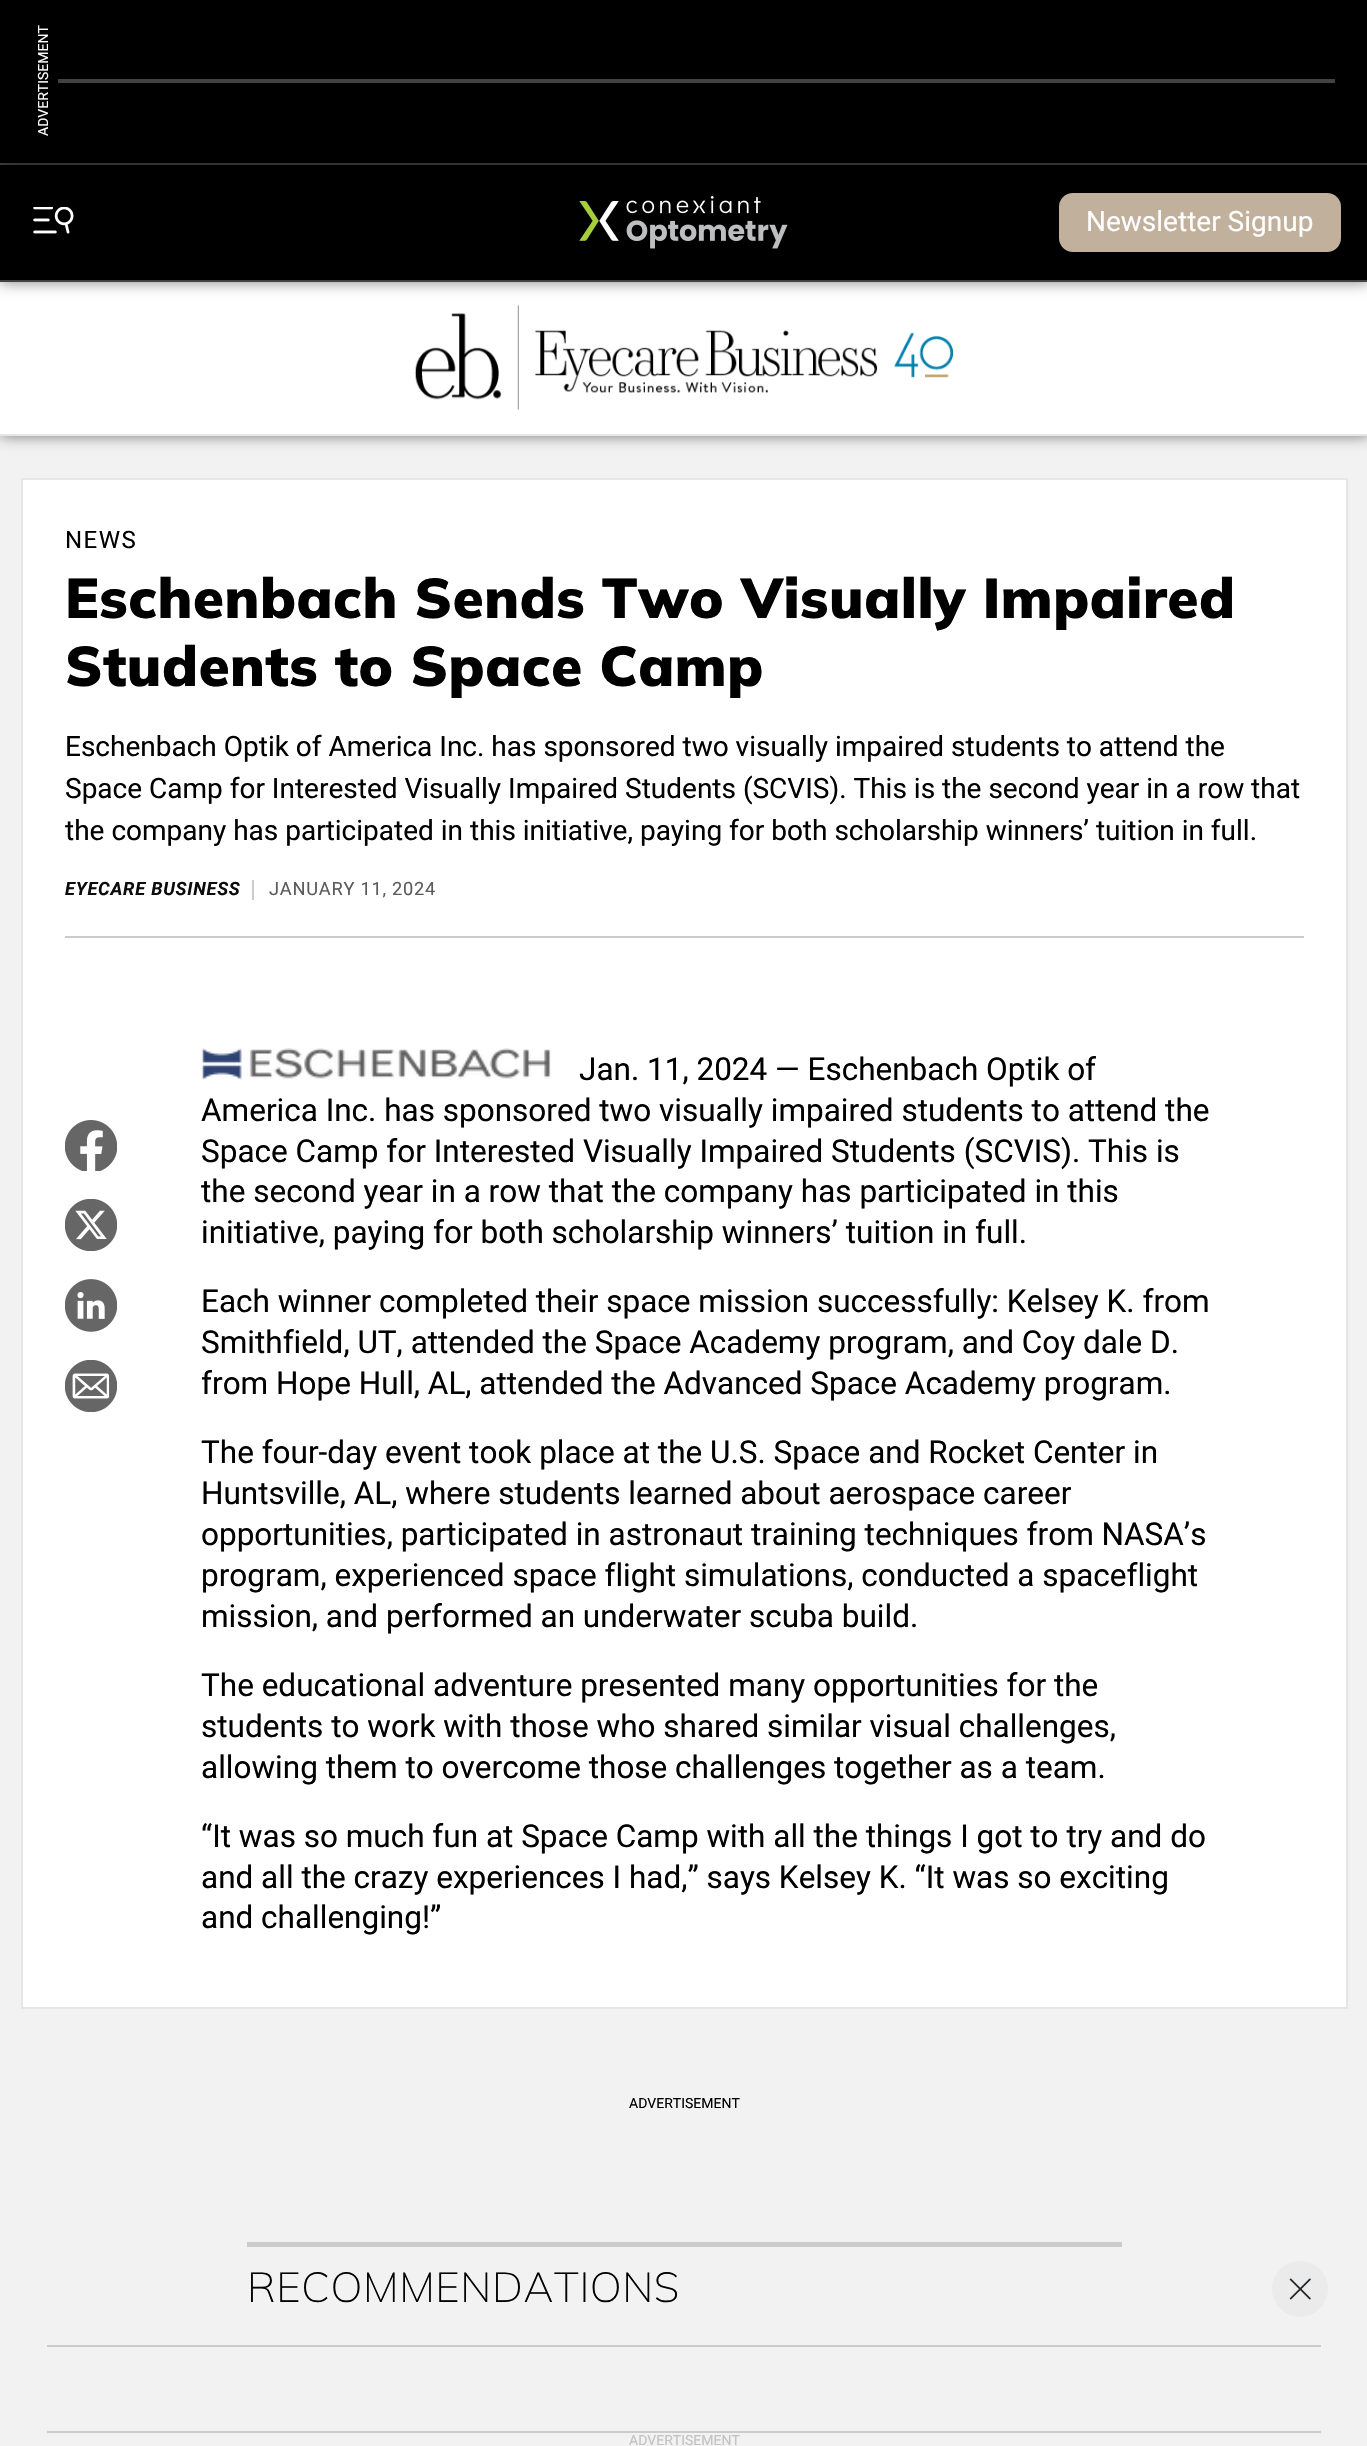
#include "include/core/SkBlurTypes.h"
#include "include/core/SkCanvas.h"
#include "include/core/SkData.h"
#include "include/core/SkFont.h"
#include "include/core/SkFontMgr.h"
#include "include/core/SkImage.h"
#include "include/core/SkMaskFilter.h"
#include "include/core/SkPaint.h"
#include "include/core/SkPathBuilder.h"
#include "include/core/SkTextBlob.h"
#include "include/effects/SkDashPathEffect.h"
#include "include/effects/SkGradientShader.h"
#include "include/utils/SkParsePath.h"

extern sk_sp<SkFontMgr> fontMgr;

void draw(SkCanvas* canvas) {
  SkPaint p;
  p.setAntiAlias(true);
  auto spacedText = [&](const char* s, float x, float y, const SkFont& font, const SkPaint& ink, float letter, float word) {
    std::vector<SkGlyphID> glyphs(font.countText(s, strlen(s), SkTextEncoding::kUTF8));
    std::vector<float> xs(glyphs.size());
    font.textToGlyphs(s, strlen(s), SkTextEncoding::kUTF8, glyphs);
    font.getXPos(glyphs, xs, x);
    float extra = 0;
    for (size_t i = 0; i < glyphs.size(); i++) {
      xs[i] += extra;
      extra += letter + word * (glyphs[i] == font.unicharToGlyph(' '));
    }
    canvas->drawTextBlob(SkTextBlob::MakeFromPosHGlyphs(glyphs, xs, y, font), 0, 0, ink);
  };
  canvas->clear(SkColorSetRGB(242, 242, 242));
  p.setColor(SK_ColorBLACK);
  canvas->drawRect(SkRect::MakeLTRB(0, 0, 1367, 163), p);
  p.setColor(SkColorSetRGB(66, 66, 66));
  canvas->drawRect(SkRect::MakeLTRB(0, 163, 1367, 165), p);
  canvas->drawRect(SkRect::MakeLTRB(58, 79, 1335, 83), p);
  p.setColor(SkColorSetARGB(128, 0, 0, 0));
  p.setMaskFilter(SkMaskFilter::MakeBlur(kNormal_SkBlurStyle, 7));
  canvas->drawRect(SkRect::MakeLTRB(0, 282, 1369, 436), p);
  p.setMaskFilter(nullptr);
  p.setColor(SK_ColorWHITE);
  canvas->drawRect(SkRect::MakeLTRB(0, 282, 1367, 434), p);
  p.setColor(SkColorSetARGB(128, 0, 0, 0));
  p.setMaskFilter(SkMaskFilter::MakeBlur(kNormal_SkBlurStyle, 7));
  canvas->drawRect(SkRect::MakeLTRB(0, 165, 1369, 282), p);
  p.setMaskFilter(nullptr);
  p.setColor(SK_ColorBLACK);
  canvas->drawRect(SkRect::MakeLTRB(0, 165, 1367, 280), p);
  p.setColor(SkColorSetRGB(66, 66, 66));
  canvas->drawRect(SkRect::MakeLTRB(0, 280, 1367, 282), p);
  canvas->drawImageRect(SkImages::DeferredFromEncodedData(SkData::MakeFromFileName("images/1.png")), SkRect::MakeLTRB(33, 207, 74, 234), SkSamplingOptions());
  canvas->drawImageRect(SkImages::DeferredFromEncodedData(SkData::MakeFromFileName("images/2.png")), SkRect::MakeLTRB(579, 196, 788, 249), SkSamplingOptions());
  p.setColor(SkColorSetRGB(193, 176, 156));
  canvas->drawRoundRect(SkRect::MakeLTRB(1059, 193, 1341, 252), 14, 14, p);
  p.setColor(SkColorSetRGB(230, 230, 230));
  canvas->drawRect(SkRect::MakeLTRB(0, 434, 1367, 436), p);
  canvas->drawImageRect(SkImages::DeferredFromEncodedData(SkData::MakeFromFileName("images/3.png")), SkRect::MakeLTRB(415, 305, 954, 410), SkSamplingOptions());
  p.setColor(SK_ColorWHITE);
  canvas->drawRect(SkRect::MakeLTRB(22, 479, 1347, 2008), p);
  p.setStyle(SkPaint::kStroke_Style);
  p.setStrokeWidth(2);
  p.setColor(SkColorSetRGB(230, 230, 230));
  canvas->drawRect(SkRect::MakeLTRB(22, 479, 1347, 2008), p);
  p.setStyle(SkPaint::kFill_Style);
  p.setColor(SkColorSetRGB(204, 204, 204));
  canvas->drawRect(SkRect::MakeLTRB(65, 936, 1304, 938), p);
  canvas->drawRect(SkRect::MakeLTRB(252, 880, 254, 900), p);
  canvas->drawImageRect(SkImages::DeferredFromEncodedData(SkData::MakeFromFileName("images/4.png")), SkRect::MakeLTRB(65, 1120, 117, 1171), SkSamplingOptions());
  canvas->drawImageRect(SkImages::DeferredFromEncodedData(SkData::MakeFromFileName("images/5.png")), SkRect::MakeLTRB(65, 1199, 117, 1251), SkSamplingOptions());
  canvas->drawImageRect(SkImages::DeferredFromEncodedData(SkData::MakeFromFileName("images/6.png")), SkRect::MakeLTRB(65, 1279, 117, 1332), SkSamplingOptions());
  canvas->drawImageRect(SkImages::DeferredFromEncodedData(SkData::MakeFromFileName("images/7.png")), SkRect::MakeLTRB(65, 1360, 117, 1412), SkSamplingOptions());
  canvas->drawImageRect(SkImages::DeferredFromEncodedData(SkData::MakeFromFileName("images/8.png")), SkRect::MakeLTRB(201, 1048, 551, 1080), SkSamplingOptions());
  canvas->drawRect(SkRect::MakeLTRB(247, 2242, 1122, 2247), p);
  p.setColor(SkColorSetRGB(235, 235, 235));
  canvas->drawCircle(1300, 2289, 28, p);
  canvas->drawImageRect(SkImages::DeferredFromEncodedData(SkData::MakeFromFileName("images/9.png")), SkRect::MakeLTRB(1289, 2278, 1311, 2300), SkSamplingOptions());
  p.setColor(SkColorSetRGB(204, 204, 204));
  canvas->drawRect(SkRect::MakeLTRB(47, 2345, 1321, 2347), p);
  canvas->drawRect(SkRect::MakeLTRB(47, 2431, 1321, 2433), p);
  SkFont font1(fontMgr->matchFamilyStyle("Roboto", SkFontStyle::Normal()), 14);
  font1.setSubpixel(true);
  p.setColor(SK_ColorWHITE);
  canvas->save();
  canvas->rotate(-90, 48, 136);
  canvas->drawString("ADVERTISEMENT", 48, 136, font1, p);
  canvas->restore();
  SkFont font2(fontMgr->matchFamilyStyle("Roboto", SkFontStyle::Normal()), 28);
  font2.setSubpixel(true);
  canvas->drawString("Newsletter Signup", 1086, 231, font2, p);
  SkFont font3(fontMgr->matchFamilyStyle("Roboto", SkFontStyle::Normal()), 24);
  font3.setSubpixel(true);
  p.setColor(SK_ColorBLACK);
  spacedText("NEWS", 65, 548, font3, p, 1.5f, 0);
  SkFont font4(fontMgr->matchFamilyStyle("Mulish", SkFontStyle(900, SkFontStyle::kNormal_Width, SkFontStyle::kUpright_Slant)), 56);
  font4.setSubpixel(true);
  spacedText("Eschenbach Sends Two Visually Impaired", 65, 618, font4, p, 0.55f, 0);
  spacedText("Students to Space Camp", 65, 686, font4, p, 0.55f, 0);
  canvas->drawString("Eschenbach Optik of America Inc. has sponsored two visually impaired students to attend the", 65, 756, font2, p);
  canvas->drawString("Space Camp for Interested Visually Impaired Students (SCVIS). This is the second year in a row that", 65, 798, font2, p);
  canvas->drawString("the company has participated in this initiative, paying for both scholarship winners’ tuition in full.", 65, 840, font2, p);
  SkFont font5(fontMgr->matchFamilyStyle("Roboto", SkFontStyle::BoldItalic()), 18.25f);
  font5.setSubpixel(true);
  p.setColor(SkColorSetRGB(12, 12, 12));
  spacedText("EYECARE BUSINESS", 65, 895, font5, p, 0.75f, 0);
  SkFont font6(fontMgr->matchFamilyStyle("Roboto", SkFontStyle::Normal()), 18.25f);
  font6.setSubpixel(true);
  p.setColor(SkColorSetRGB(91, 91, 91));
  spacedText("JANUARY 11, 2024", 269, 895, font6, p, 0.75f, 0);
  SkFont font7(fontMgr->matchFamilyStyle("Roboto", SkFontStyle::Normal()), 31.5f);
  font7.setSubpixel(true);
  p.setColor(SK_ColorBLACK);
  canvas->drawString("Jan. 11, 2024 — Eschenbach Optik of", 579, 1080, font7, p);
  canvas->drawString("America Inc. has sponsored two visually impaired students to attend the", 201, 1121, font7, p);
  canvas->drawString("Space Camp for Interested Visually Impaired Students (SCVIS). This is", 201, 1162, font7, p);
  canvas->drawString("the second year in a row that the company has participated in this", 201, 1202, font7, p);
  canvas->drawString("initiative, paying for both scholarship winners’ tuition in full.", 201, 1243, font7, p);
  canvas->drawString("Each winner completed their space mission successfully: Kelsey K. from", 201, 1312, font7, p);
  canvas->drawString("Smithfield, UT, attended the Space Academy program, and Coy dale D.", 201, 1353, font7, p);
  canvas->drawString("from Hope Hull, AL, attended the Advanced Space Academy program.", 201, 1394, font7, p);
  canvas->drawString("The four-day event took place at the U.S. Space and Rocket Center in", 201, 1463, font7, p);
  canvas->drawString("Huntsville, AL, where students learned about aerospace career", 201, 1504, font7, p);
  canvas->drawString("opportunities, participated in astronaut training techniques from NASA’s", 201, 1545, font7, p);
  canvas->drawString("program, experienced space flight simulations, conducted a spaceflight", 201, 1586, font7, p);
  canvas->drawString("mission, and performed an underwater scuba build.", 201, 1627, font7, p);
  canvas->drawString("The educational adventure presented many opportunities for the", 201, 1696, font7, p);
  canvas->drawString("students to work with those who shared similar visual challenges,", 201, 1737, font7, p);
  canvas->drawString("allowing them to overcome those challenges together as a team.", 201, 1778, font7, p);
  canvas->drawString("“It was so much fun at Space Camp with all the things I got to try and do", 201, 1847, font7, p);
  canvas->drawString("and all the crazy experiences I had,” says Kelsey K. “It was so exciting", 201, 1888, font7, p);
  canvas->drawString("and challenging!”", 201, 1928, font7, p);
  canvas->drawString("ADVERTISEMENT", 629, 2108, font1, p);
  SkFont font8(fontMgr->matchFamilyStyle("Mulish", SkFontStyle(200, SkFontStyle::kNormal_Width, SkFontStyle::kUpright_Slant)), 42);
  font8.setSubpixel(true);
  spacedText("RECOMMENDATIONS", 247, 2302, font8, p, 0.55f, 0);
  p.setColor(SkColorSetRGB(194, 194, 194));
  canvas->drawString("ADVERTISEMENT", 629, 2445, font1, p);
}
